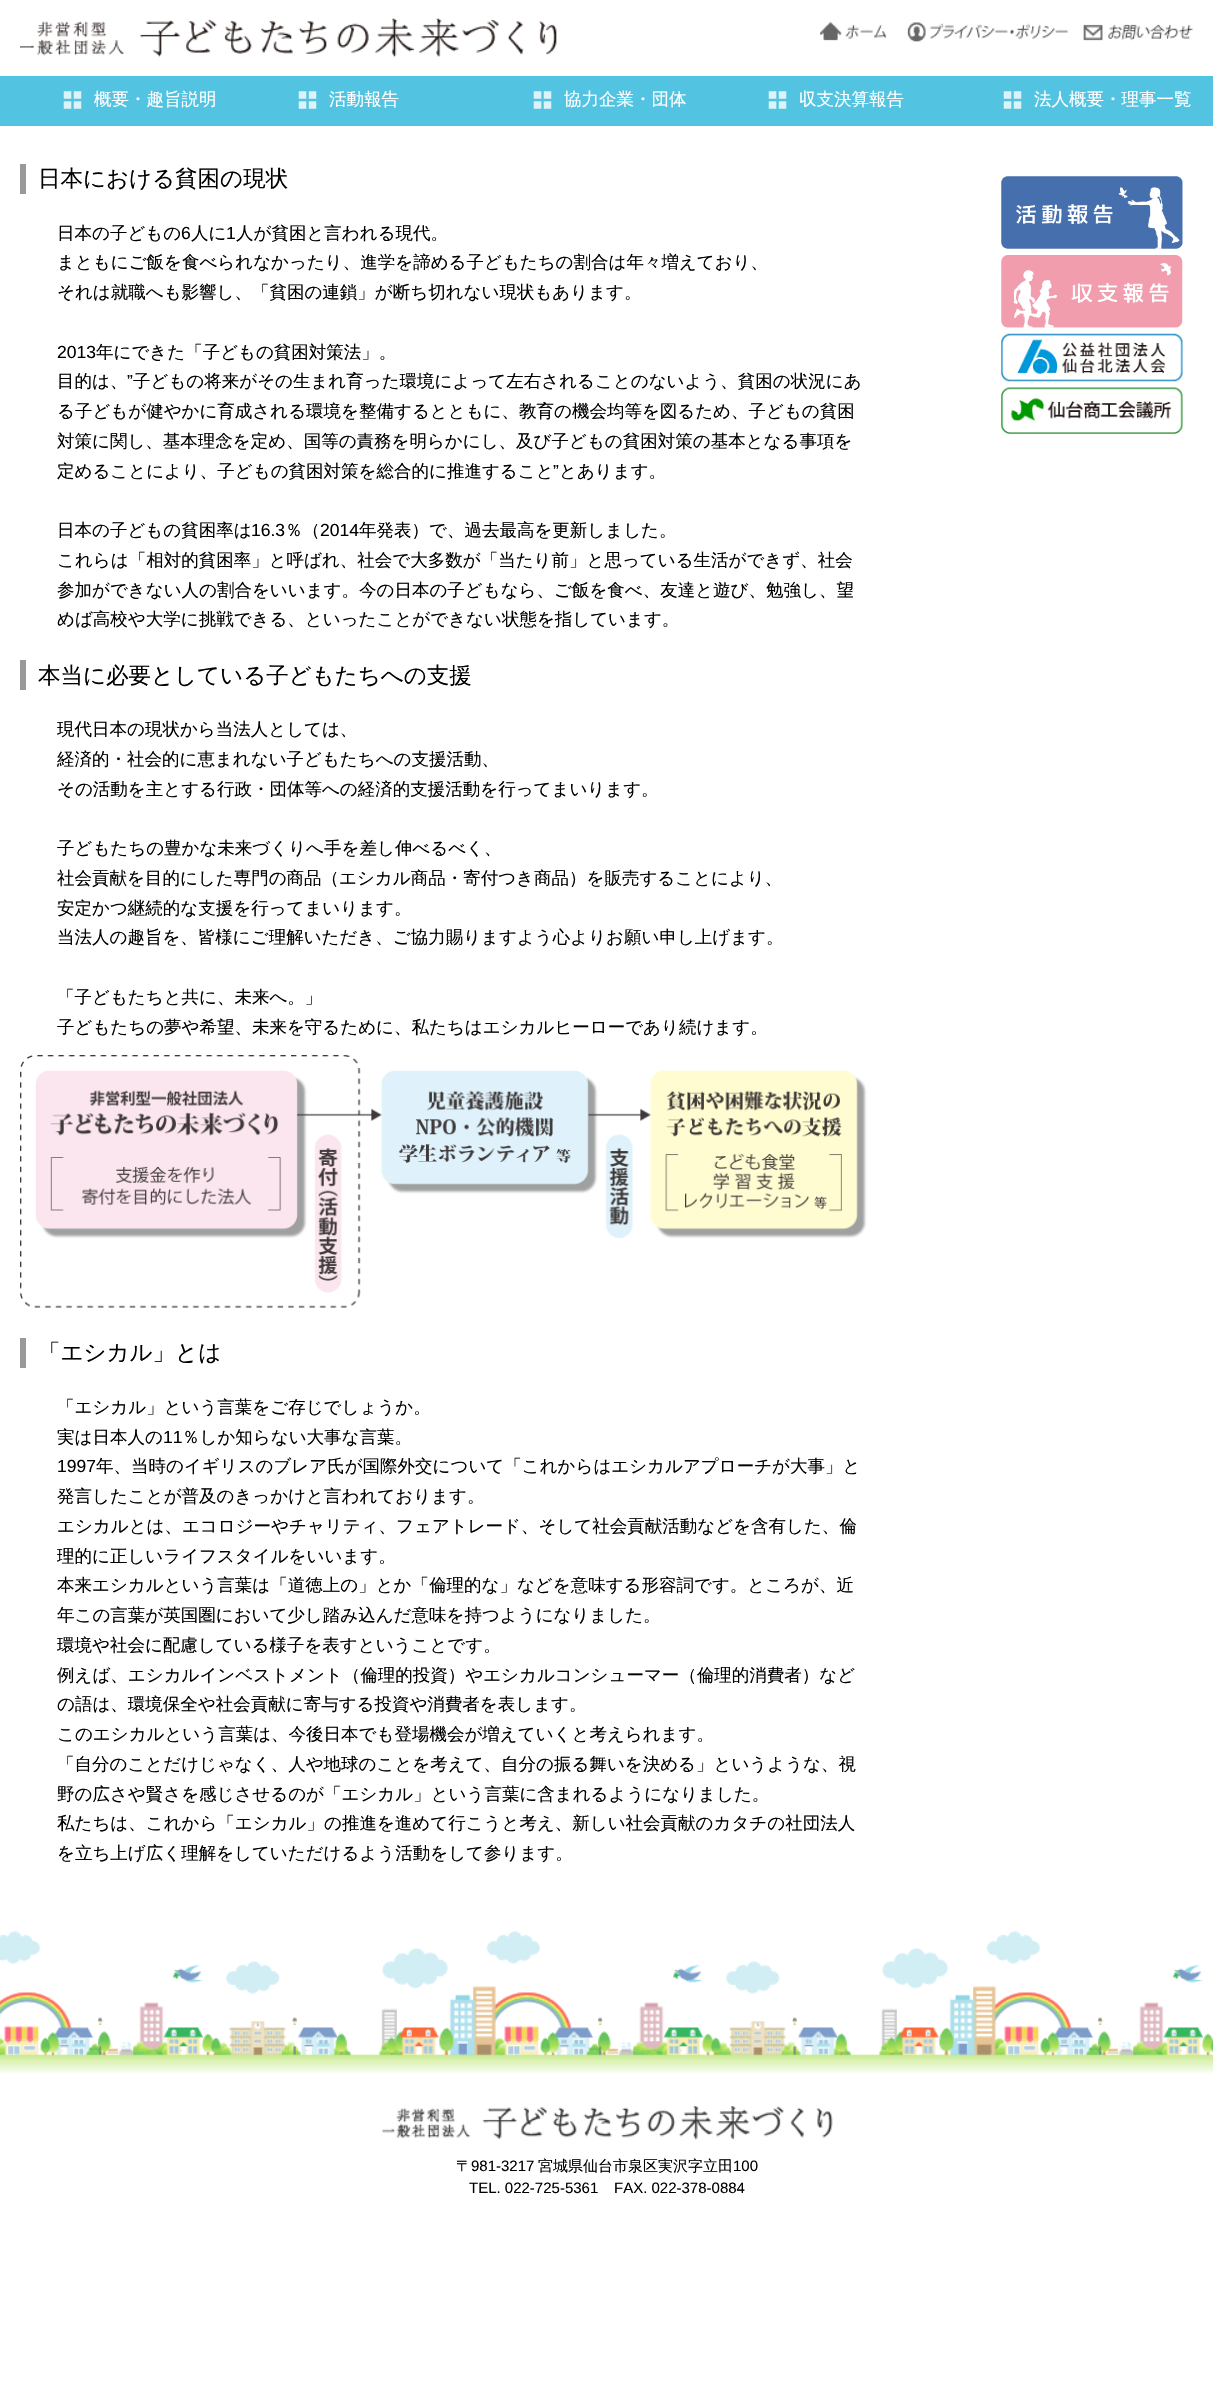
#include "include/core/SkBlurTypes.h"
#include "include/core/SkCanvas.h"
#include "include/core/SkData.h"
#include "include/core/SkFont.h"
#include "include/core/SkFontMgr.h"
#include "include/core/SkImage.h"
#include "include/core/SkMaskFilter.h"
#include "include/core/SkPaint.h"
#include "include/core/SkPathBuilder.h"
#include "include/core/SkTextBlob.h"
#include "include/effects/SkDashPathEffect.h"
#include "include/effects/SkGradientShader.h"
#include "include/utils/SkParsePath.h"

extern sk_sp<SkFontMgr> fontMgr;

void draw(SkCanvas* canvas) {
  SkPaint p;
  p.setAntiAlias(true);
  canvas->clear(SK_ColorWHITE);
  canvas->drawImageRect(SkImages::DeferredFromEncodedData(SkData::MakeFromFileName("images/1.png")), SkRect::MakeLTRB(20, 18, 557, 57), SkSamplingOptions());
  canvas->drawImageRect(SkImages::DeferredFromEncodedData(SkData::MakeFromFileName("images/2.png")), SkRect::MakeLTRB(820, 22, 1193, 42), SkSamplingOptions());
  p.setColor(SkColorSetRGB(82, 196, 225));
  canvas->drawRect(SkRect::MakeLTRB(0, 76, 1213, 126), p);
  canvas->drawImageRect(SkImages::DeferredFromEncodedData(SkData::MakeFromFileName("images/3.png")), SkRect::MakeLTRB(63, 91, 82, 109), SkSamplingOptions());
  canvas->drawImageRect(SkImages::DeferredFromEncodedData(SkData::MakeFromFileName("images/3.png")), SkRect::MakeLTRB(298, 91, 317, 109), SkSamplingOptions());
  canvas->drawImageRect(SkImages::DeferredFromEncodedData(SkData::MakeFromFileName("images/3.png")), SkRect::MakeLTRB(533, 91, 552, 109), SkSamplingOptions());
  canvas->drawImageRect(SkImages::DeferredFromEncodedData(SkData::MakeFromFileName("images/3.png")), SkRect::MakeLTRB(768, 91, 787, 109), SkSamplingOptions());
  canvas->drawImageRect(SkImages::DeferredFromEncodedData(SkData::MakeFromFileName("images/3.png")), SkRect::MakeLTRB(1003, 91, 1022, 109), SkSamplingOptions());
  p.setColor(SkColorSetRGB(153, 153, 153));
  canvas->drawRect(SkRect::MakeLTRB(20, 164, 26, 194), p);
  canvas->drawRect(SkRect::MakeLTRB(20, 660, 26, 690), p);
  canvas->drawImageRect(SkImages::DeferredFromEncodedData(SkData::MakeFromFileName("images/4.png")), SkRect::MakeLTRB(20, 1055, 867, 1308), SkSamplingOptions());
  canvas->drawRect(SkRect::MakeLTRB(20, 1338, 26, 1368), p);
  canvas->drawImageRect(SkImages::DeferredFromEncodedData(SkData::MakeFromFileName("images/5.png")), SkRect::MakeLTRB(1001, 176, 1183, 249), SkSamplingOptions());
  canvas->drawImageRect(SkImages::DeferredFromEncodedData(SkData::MakeFromFileName("images/6.png")), SkRect::MakeLTRB(1001, 255, 1183, 328), SkSamplingOptions());
  canvas->drawImageRect(SkImages::DeferredFromEncodedData(SkData::MakeFromFileName("images/7.png")), SkRect::MakeLTRB(1001, 333, 1183, 382), SkSamplingOptions());
  canvas->drawImageRect(SkImages::DeferredFromEncodedData(SkData::MakeFromFileName("images/8.png")), SkRect::MakeLTRB(1001, 387, 1183, 434), SkSamplingOptions());
  canvas->drawImageRect(SkImages::DeferredFromEncodedData(SkData::MakeFromFileName("images/9.png")), SkRect::MakeLTRB(0, 1931, 1213, 2074), SkSamplingOptions());
  canvas->drawImageRect(SkImages::DeferredFromEncodedData(SkData::MakeFromFileName("images/10.png")), SkRect::MakeLTRB(382, 2106, 833, 2140), SkSamplingOptions());
  SkFont font1(fontMgr->matchFamilyStyle("WenQuanYi Zen Hei", SkFontStyle(500, SkFontStyle::kNormal_Width, SkFontStyle::kUpright_Slant)), 17.5f);
  font1.setSubpixel(true);
  p.setColor(SK_ColorWHITE);
  canvas->drawString("概要・趣旨説明", 94, 105, font1, p);
  canvas->drawString("活動報告", 329, 105, font1, p);
  canvas->drawString("協力企業・団体", 564, 105, font1, p);
  canvas->drawString("収支決算報告", 799, 105, font1, p);
  canvas->drawString("法人概要・理事一覧", 1034, 105, font1, p);
  SkFont font2(fontMgr->matchFamilyStyle("WenQuanYi Zen Hei", SkFontStyle(500, SkFontStyle::kNormal_Width, SkFontStyle::kUpright_Slant)), 22.5f);
  font2.setSubpixel(true);
  p.setColor(SK_ColorBLACK);
  canvas->drawString("日本における貧困の現状", 38, 186, font2, p);
  canvas->drawString("日本の子どもの", 57, 239, font1, p);
  SkFont font3(fontMgr->matchFamilyStyle("Liberation Sans", SkFontStyle::Normal()), 17.5f);
  font3.setSubpixel(true);
  canvas->drawString("6", 181, 239, font3, p);
  canvas->drawString("人に", 191, 239, font1, p);
  canvas->drawString("1", 226, 239, font3, p);
  canvas->drawString("人が貧困と言われる現代。", 236, 239, font1, p);
  canvas->drawString("まともにご飯を食べられなかったり、進学を諦める子どもたちの割合は年々増えており、", 57, 268, font1, p);
  canvas->drawString("それは就職へも影響し、「貧困の連鎖」が断ち切れない現状もあります。", 57, 298, font1, p);
  canvas->drawString("2013", 57, 358, font3, p);
  canvas->drawString("年にできた「子どもの貧困対策法」。", 96, 358, font1, p);
  canvas->drawString("目的は、", 57, 387, font1, p);
  canvas->drawString("”", 127, 387, font3, p);
  canvas->drawString("子どもの将来がその生まれ育った環境によって左右されることのないよう、貧困の状況にあ", 133, 387, font1, p);
  canvas->drawString("る子どもが健やかに育成される環境を整備するとともに、教育の機会均等を図るため、子どもの貧困", 57, 417, font1, p);
  canvas->drawString("対策に関し、基本理念を定め、国等の責務を明らかにし、及び子どもの貧困対策の基本となる事項を", 57, 447, font1, p);
  canvas->drawString("定めることにより、子どもの貧困対策を総合的に推進すること", 57, 477, font1, p);
  canvas->drawString("”", 553, 477, font3, p);
  canvas->drawString("とあります。", 559, 477, font1, p);
  canvas->drawString("日本の子どもの貧困率は", 57, 536, font1, p);
  canvas->drawString("16.3", 251, 536, font3, p);
  canvas->drawString("％（", 285, 536, font1, p);
  canvas->drawString("2014", 320, 536, font3, p);
  canvas->drawString("年発表）で、過去最高を更新しました。", 359, 536, font1, p);
  canvas->drawString("これらは「相対的貧困率」と呼ばれ、社会で大多数が「当たり前」と思っている生活ができず、社会", 57, 566, font1, p);
  canvas->drawString("参加ができない人の割合をいいます。今の日本の子どもなら、ご飯を食べ、友達と遊び、勉強し、望", 57, 596, font1, p);
  canvas->drawString("めば高校や大学に挑戦できる、といったことができない状態を指しています。", 57, 625, font1, p);
  canvas->drawString("本当に必要としている子どもたちへの支援", 38, 683, font2, p);
  canvas->drawString("現代日本の現状から当法人としては、", 57, 735, font1, p);
  canvas->drawString("経済的・社会的に恵まれない子どもたちへの支援活動、", 57, 765, font1, p);
  canvas->drawString("その活動を主とする行政・団体等への経済的支援活動を行ってまいります。", 57, 795, font1, p);
  canvas->drawString("子どもたちの豊かな未来づくりへ手を差し伸べるべく、", 57, 854, font1, p);
  canvas->drawString("社会貢献を目的にした専門の商品（エシカル商品・寄付つき商品）を販売することにより、", 57, 884, font1, p);
  canvas->drawString("安定かつ継続的な支援を行ってまいります。", 57, 914, font1, p);
  canvas->drawString("当法人の趣旨を、皆様にご理解いただき、ご協力賜りますよう心よりお願い申し上げます。", 57, 943, font1, p);
  canvas->drawString("「子どもたちと共に、未来へ。」", 57, 1003, font1, p);
  canvas->drawString("子どもたちの夢や希望、未来を守るために、私たちはエシカルヒーローであり続けます。", 57, 1033, font1, p);
  canvas->drawString("「エシカル」とは", 38, 1360, font2, p);
  canvas->drawString("「エシカル」という言葉をご存じでしょうか。", 57, 1413, font1, p);
  canvas->drawString("実は日本人の", 57, 1443, font1, p);
  canvas->drawString("11", 163, 1443, font3, p);
  canvas->drawString("％しか知らない大事な言葉。", 182, 1443, font1, p);
  canvas->drawString("1997", 57, 1472, font3, p);
  canvas->drawString("年、当時のイギリスのブレア氏が国際外交について「これからはエシカルアプローチが大事」と", 96, 1472, font1, p);
  canvas->drawString("発言したことが普及のきっかけと言われております。", 57, 1502, font1, p);
  canvas->drawString("エシカルとは、エコロジーやチャリティ、フェアトレード、そして社会貢献活動などを含有した、倫", 57, 1532, font1, p);
  canvas->drawString("理的に正しいライフスタイルをいいます。", 57, 1562, font1, p);
  canvas->drawString("本来エシカルという言葉は「道徳上の」とか「倫理的な」などを意味する形容詞です。ところが、近", 57, 1591, font1, p);
  canvas->drawString("年この言葉が英国圏において少し踏み込んだ意味を持つようになりました。", 57, 1621, font1, p);
  canvas->drawString("環境や社会に配慮している様子を表すということです。", 57, 1651, font1, p);
  canvas->drawString("例えば、エシカルインベストメント（倫理的投資）やエシカルコンシューマー（倫理的消費者）など", 57, 1681, font1, p);
  canvas->drawString("の語は、環境保全や社会貢献に寄与する投資や消費者を表します。", 57, 1710, font1, p);
  canvas->drawString("このエシカルという言葉は、今後日本でも登場機会が増えていくと考えられます。", 57, 1740, font1, p);
  canvas->drawString("「自分のことだけじゃなく、人や地球のことを考えて、自分の振る舞いを決める」というような、視", 57, 1770, font1, p);
  canvas->drawString("野の広さや賢さを感じさせるのが「エシカル」という言葉に含まれるようになりました。", 57, 1800, font1, p);
  canvas->drawString("私たちは、これから「エシカル」の推進を進めて行こうと考え、新しい社会貢献のカタチの社団法人", 57, 1829, font1, p);
  canvas->drawString("を立ち上げ広く理解をしていただけるよう活動をして参ります。", 57, 1859, font1, p);
  SkFont font4(fontMgr->matchFamilyStyle("WenQuanYi Zen Hei", SkFontStyle(500, SkFontStyle::kNormal_Width, SkFontStyle::kUpright_Slant)), 15);
  font4.setSubpixel(true);
  canvas->drawString("〒", 456, 2171, font4, p);
  SkFont font5(fontMgr->matchFamilyStyle("Liberation Sans", SkFontStyle::Normal()), 15);
  font5.setSubpixel(true);
  canvas->drawString("981-3217", 471, 2171, font5, p);
  canvas->drawString("宮城県仙台市泉区実沢字立田", 538, 2171, font4, p);
  canvas->drawString("100", 733, 2171, font5, p);
  canvas->drawString("TEL. 022-725-5361", 469, 2193, font5, p);
  canvas->drawString("FAX. 022-378-0884", 614, 2193, font5, p);
}
